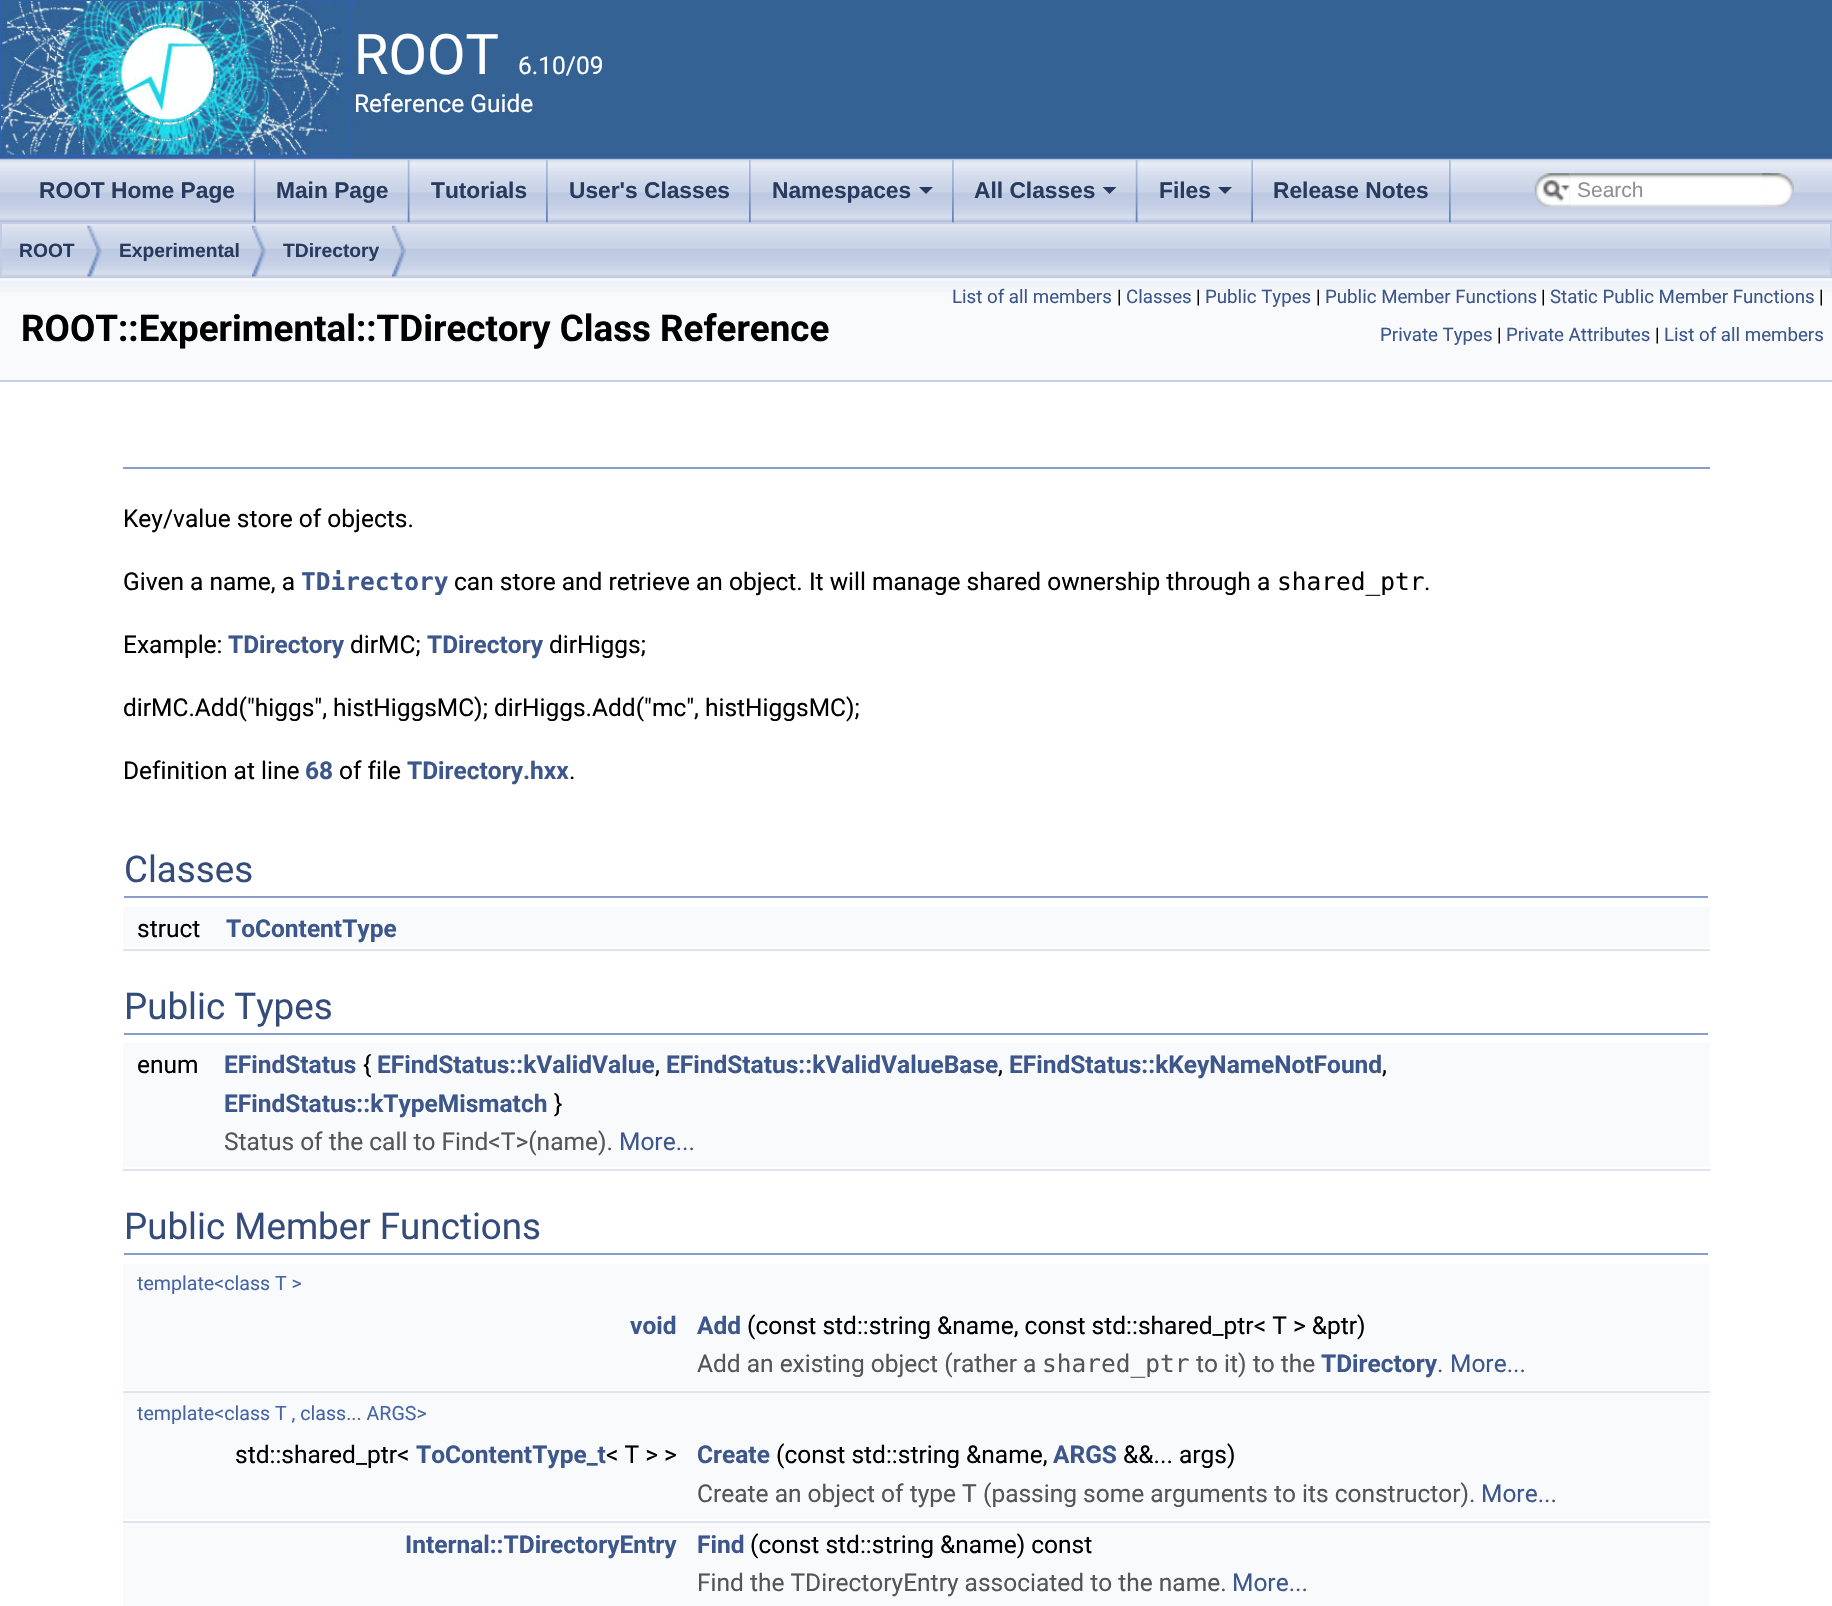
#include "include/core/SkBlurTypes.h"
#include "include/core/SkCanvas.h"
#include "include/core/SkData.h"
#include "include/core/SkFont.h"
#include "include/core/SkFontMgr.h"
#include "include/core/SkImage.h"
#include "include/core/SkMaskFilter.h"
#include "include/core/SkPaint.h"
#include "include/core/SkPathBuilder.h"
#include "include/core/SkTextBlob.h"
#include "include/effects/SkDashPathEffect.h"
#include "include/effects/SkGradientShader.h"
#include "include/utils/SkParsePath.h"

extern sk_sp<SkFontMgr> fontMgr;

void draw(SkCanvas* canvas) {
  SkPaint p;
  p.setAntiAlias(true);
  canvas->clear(SK_ColorWHITE);
  p.setColor(SkColorSetRGB(83, 115, 180));
  canvas->drawRect(SkRect::MakeLTRB(0, 158, 1832, 160), p);
  p.setColor(SkColorSetRGB(52, 98, 149));
  canvas->drawRect(SkRect::MakeLTRB(0, 0, 1832, 158), p);
  canvas->drawImageRect(SkImages::DeferredFromEncodedData(SkData::MakeFromFileName("images/1.png")), SkRect::MakeLTRB(0, 0, 356, 158), SkSamplingOptions());
  canvas->drawImageRect(SkImages::DeferredFromEncodedData(SkData::MakeFromFileName("images/2.png")), SkRect::MakeLTRB(0, 159, 1832, 222), SkSamplingOptions());
  p.setColor(SkColorSetRGB(249, 250, 252));
  canvas->drawRect(SkRect::MakeLTRB(0, 278, 1832, 380), p);
  canvas->drawImageRect(SkImages::DeferredFromEncodedData(SkData::MakeFromFileName("images/14.png")), SkRect::MakeLTRB(0, 278, 1832, 292), SkSamplingOptions());
  canvas->drawImageRect(SkImages::DeferredFromEncodedData(SkData::MakeFromFileName("images/10.png")), SkRect::MakeLTRB(0, 224, 1832, 279), SkSamplingOptions());
  p.setStyle(SkPaint::kStroke_Style);
  p.setStrokeWidth(2);
  p.setColor(SkColorSetRGB(194, 205, 228));
  canvas->drawRect(SkRect::MakeLTRB(1, 223, 1831, 277), p);
  canvas->drawImageRect(SkImages::DeferredFromEncodedData(SkData::MakeFromFileName("images/3.png")), SkRect::MakeLTRB(253, 160, 256, 223), SkSamplingOptions());
  canvas->drawImageRect(SkImages::DeferredFromEncodedData(SkData::MakeFromFileName("images/3.png")), SkRect::MakeLTRB(407, 160, 410, 223), SkSamplingOptions());
  canvas->drawImageRect(SkImages::DeferredFromEncodedData(SkData::MakeFromFileName("images/4.png")), SkRect::MakeLTRB(546, 160, 548, 223), SkSamplingOptions());
  canvas->drawImageRect(SkImages::DeferredFromEncodedData(SkData::MakeFromFileName("images/4.png")), SkRect::MakeLTRB(749, 160, 751, 223), SkSamplingOptions());
  canvas->drawImageRect(SkImages::DeferredFromEncodedData(SkData::MakeFromFileName("images/4.png")), SkRect::MakeLTRB(952, 160, 954, 223), SkSamplingOptions());
  p.setStyle(SkPaint::kFill_Style);
  p.setColor(SkColorSetRGB(40, 58, 93));
  canvas->drawPath(SkPathBuilder().moveTo(919, 187).lineTo(933, 187).lineTo(926, 194).close().detach(), p);
  canvas->drawImageRect(SkImages::DeferredFromEncodedData(SkData::MakeFromFileName("images/3.png")), SkRect::MakeLTRB(1135, 160, 1138, 223), SkSamplingOptions());
  canvas->drawPath(SkPathBuilder().moveTo(1102.5f, 187).lineTo(1116.5f, 187).lineTo(1109.5f, 194).close().detach(), p);
  canvas->drawImageRect(SkImages::DeferredFromEncodedData(SkData::MakeFromFileName("images/5.png")), SkRect::MakeLTRB(1251, 160, 1253, 223), SkSamplingOptions());
  canvas->drawPath(SkPathBuilder().moveTo(1218, 187).lineTo(1232, 187).lineTo(1225, 194).close().detach(), p);
  canvas->drawImageRect(SkImages::DeferredFromEncodedData(SkData::MakeFromFileName("images/4.png")), SkRect::MakeLTRB(1449, 160, 1451, 223), SkSamplingOptions());
  canvas->drawImageRect(SkImages::DeferredFromEncodedData(SkData::MakeFromFileName("images/6.png")), SkRect::MakeLTRB(1534, 173, 1570, 207), SkSamplingOptions());
  canvas->drawImageRect(SkImages::DeferredFromEncodedData(SkData::MakeFromFileName("images/7.png")), SkRect::MakeLTRB(1543, 179, 1570, 202), SkSamplingOptions());
  canvas->drawImageRect(SkImages::DeferredFromEncodedData(SkData::MakeFromFileName("images/8.png")), SkRect::MakeLTRB(1569, 173, 1771, 207), SkSamplingOptions());
  canvas->drawImageRect(SkImages::DeferredFromEncodedData(SkData::MakeFromFileName("images/9.png")), SkRect::MakeLTRB(1762, 173, 1794, 207), SkSamplingOptions());
  canvas->drawImageRect(SkImages::DeferredFromEncodedData(SkData::MakeFromFileName("images/11.png")), SkRect::MakeLTRB(87, 225, 102, 277), SkSamplingOptions());
  canvas->drawImageRect(SkImages::DeferredFromEncodedData(SkData::MakeFromFileName("images/12.png")), SkRect::MakeLTRB(252, 225, 266, 277), SkSamplingOptions());
  canvas->drawImageRect(SkImages::DeferredFromEncodedData(SkData::MakeFromFileName("images/13.png")), SkRect::MakeLTRB(392, 225, 406, 277), SkSamplingOptions());
  p.setColor(SkColorSetRGB(196, 207, 229));
  canvas->drawRect(SkRect::MakeLTRB(0, 380, 1832, 382), p);
  p.setColor(SkColorSetRGB(135, 158, 203));
  canvas->drawRect(SkRect::MakeLTRB(123, 467, 1710, 469), p);
  canvas->drawRect(SkRect::MakeLTRB(124, 896, 1708, 898), p);
  p.setColor(SkColorSetRGB(249, 250, 252));
  canvas->drawRect(SkRect::MakeLTRB(123, 907, 1710, 947), p);
  p.setColor(SkColorSetRGB(222, 228, 240));
  canvas->drawRect(SkRect::MakeLTRB(123, 949, 1710, 951), p);
  p.setColor(SkColorSetRGB(135, 158, 203));
  canvas->drawRect(SkRect::MakeLTRB(124, 1033, 1708, 1035), p);
  p.setColor(SkColorSetRGB(249, 250, 252));
  canvas->drawRect(SkRect::MakeLTRB(123, 1043, 1710, 1122), p);
  canvas->drawRect(SkRect::MakeLTRB(123, 1122, 1710, 1167), p);
  p.setColor(SkColorSetRGB(222, 228, 240));
  canvas->drawRect(SkRect::MakeLTRB(123, 1169, 1710, 1171), p);
  p.setColor(SkColorSetRGB(135, 158, 203));
  canvas->drawRect(SkRect::MakeLTRB(124, 1253, 1708, 1255), p);
  p.setColor(SkColorSetRGB(249, 250, 252));
  canvas->drawRect(SkRect::MakeLTRB(123, 1264, 1710, 1304), p);
  canvas->drawRect(SkRect::MakeLTRB(123, 1304, 1710, 1344), p);
  canvas->drawRect(SkRect::MakeLTRB(123, 1344, 1710, 1390), p);
  p.setColor(SkColorSetRGB(222, 228, 240));
  canvas->drawRect(SkRect::MakeLTRB(123, 1391, 1710, 1393), p);
  p.setColor(SkColorSetRGB(249, 250, 252));
  canvas->drawRect(SkRect::MakeLTRB(123, 1393, 1710, 1433), p);
  canvas->drawRect(SkRect::MakeLTRB(123, 1433, 1710, 1474), p);
  canvas->drawRect(SkRect::MakeLTRB(123, 1474, 1710, 1519), p);
  p.setColor(SkColorSetRGB(222, 228, 240));
  canvas->drawRect(SkRect::MakeLTRB(123, 1521, 1710, 1523), p);
  p.setColor(SkColorSetRGB(249, 250, 252));
  canvas->drawRect(SkRect::MakeLTRB(123, 1523, 1710, 1563), p);
  canvas->drawRect(SkRect::MakeLTRB(123, 1563, 1710, 1606), p);
  SkFont font1(fontMgr->matchFamilyStyle("Roboto", SkFontStyle::Normal()), 56);
  font1.setSubpixel(true);
  p.setColor(SK_ColorWHITE);
  canvas->drawString("ROOT", 354, 74, font1, p);
  SkFont font2(fontMgr->matchFamilyStyle("Roboto", SkFontStyle::Normal()), 24.5f);
  font2.setSubpixel(true);
  canvas->drawString("6.10/09", 518, 74, font2, p);
  canvas->drawString("Reference Guide", 354, 112, font2, p);
  SkFont font3(fontMgr->matchFamilyStyle("Liberation Sans", SkFontStyle::Bold()), 22.75f);
  font3.setSubpixel(true);
  p.setColor(SkColorSetRGB(40, 58, 93));
  canvas->drawString("ROOT Home Page", 39, 198, font3, p);
  canvas->drawString("Main Page", 276, 198, font3, p);
  canvas->drawString("Tutorials", 431, 198, font3, p);
  canvas->drawString("User's Classes", 569, 198, font3, p);
  canvas->drawString("Namespaces", 772, 198, font3, p);
  canvas->drawString("All Classes", 974, 198, font3, p);
  canvas->drawString("Files", 1159, 198, font3, p);
  canvas->drawString("Release Notes", 1273, 198, font3, p);
  SkFont font4(fontMgr->matchFamilyStyle("Liberation Sans", SkFontStyle::Normal()), 21);
  font4.setSubpixel(true);
  p.setColor(SkColorSetRGB(144, 144, 144));
  canvas->drawString("Search", 1577, 197, font4, p);
  SkFont font5(fontMgr->matchFamilyStyle("Liberation Sans", SkFontStyle::Bold()), 19.25f);
  font5.setSubpixel(true);
  p.setColor(SkColorSetRGB(40, 58, 93));
  canvas->drawString("ROOT", 19, 257, font5, p);
  canvas->drawString("Experimental", 119, 257, font5, p);
  canvas->drawString("TDirectory", 283, 257, font5, p);
  SkFont font6(fontMgr->matchFamilyStyle("Roboto", SkFontStyle::Bold()), 36.75f);
  font6.setSubpixel(true);
  p.setColor(SK_ColorBLACK);
  canvas->drawString("ROOT::Experimental::TDirectory Class Reference", 21, 341, font6, p);
  SkFont font7(fontMgr->matchFamilyStyle("Roboto", SkFontStyle::Normal()), 18.7f);
  font7.setSubpixel(true);
  p.setColor(SkColorSetRGB(61, 87, 140));
  canvas->drawString("List of all members", 952, 303, font7, p);
  p.setColor(SK_ColorBLACK);
  canvas->drawString("|", 1117, 303, font7, p);
  p.setColor(SkColorSetRGB(61, 87, 140));
  canvas->drawString("Classes", 1126, 303, font7, p);
  p.setColor(SK_ColorBLACK);
  canvas->drawString("|", 1196, 303, font7, p);
  p.setColor(SkColorSetRGB(61, 87, 140));
  canvas->drawString("Public Types", 1205, 303, font7, p);
  p.setColor(SK_ColorBLACK);
  canvas->drawString("|", 1316, 303, font7, p);
  p.setColor(SkColorSetRGB(61, 87, 140));
  canvas->drawString("Public Member Functions", 1325, 303, font7, p);
  p.setColor(SK_ColorBLACK);
  canvas->drawString("|", 1541, 303, font7, p);
  p.setColor(SkColorSetRGB(61, 87, 140));
  canvas->drawString("Static Public Member Functions", 1550, 303, font7, p);
  p.setColor(SK_ColorBLACK);
  canvas->drawString("|", 1819, 303, font7, p);
  p.setColor(SkColorSetRGB(61, 87, 140));
  canvas->drawString("Private Types", 1380, 341, font7, p);
  p.setColor(SK_ColorBLACK);
  canvas->drawString("|", 1497, 341, font7, p);
  p.setColor(SkColorSetRGB(61, 87, 140));
  canvas->drawString("Private Attributes", 1506, 341, font7, p);
  p.setColor(SK_ColorBLACK);
  canvas->drawString("|", 1655, 341, font7, p);
  p.setColor(SkColorSetRGB(61, 87, 140));
  canvas->drawString("List of all members", 1664, 341, font7, p);
  p.setColor(SK_ColorBLACK);
  canvas->drawString("Key/value store of objects.", 123, 527, font2, p);
  canvas->drawString("Given a name, a", 123, 590, font2, p);
  SkFont font8(fontMgr->matchFamilyStyle("DejaVu Sans Mono", SkFontStyle::Bold()), 24.5f);
  font8.setSubpixel(true);
  p.setColor(SkColorSetRGB(61, 87, 140));
  canvas->drawString("TDirectory", 301, 590, font8, p);
  p.setColor(SK_ColorBLACK);
  canvas->drawString("can store and retrieve an object. It will manage shared ownership through a", 454, 590, font2, p);
  SkFont font9(fontMgr->matchFamilyStyle("DejaVu Sans Mono", SkFontStyle::Normal()), 24.5f);
  font9.setSubpixel(true);
  canvas->drawString("shared_ptr", 1277, 590, font9, p);
  canvas->drawString(".", 1424, 590, font2, p);
  canvas->drawString("Example:", 123, 653, font2, p);
  SkFont font10(fontMgr->matchFamilyStyle("Roboto", SkFontStyle::Bold()), 24.5f);
  font10.setSubpixel(true);
  p.setColor(SkColorSetRGB(61, 87, 140));
  canvas->drawString("TDirectory", 228, 653, font10, p);
  p.setColor(SK_ColorBLACK);
  canvas->drawString("dirMC;", 350, 653, font2, p);
  p.setColor(SkColorSetRGB(61, 87, 140));
  canvas->drawString("TDirectory", 427, 653, font10, p);
  p.setColor(SK_ColorBLACK);
  canvas->drawString("dirHiggs;", 549, 653, font2, p);
  canvas->drawString("dirMC.Add(\"higgs\", histHiggsMC); dirHiggs.Add(\"mc\", histHiggsMC);", 123, 716, font2, p);
  canvas->drawString("Definition at line", 123, 779, font2, p);
  p.setColor(SkColorSetRGB(61, 87, 140));
  canvas->drawString("68", 305, 779, font10, p);
  p.setColor(SK_ColorBLACK);
  canvas->drawString("of file", 339, 779, font2, p);
  p.setColor(SkColorSetRGB(61, 87, 140));
  canvas->drawString("TDirectory.hxx", 407, 779, font10, p);
  p.setColor(SK_ColorBLACK);
  canvas->drawString(".", 569, 779, font2, p);
  SkFont font11(fontMgr->matchFamilyStyle("Roboto", SkFontStyle::Normal()), 36.75f);
  font11.setSubpixel(true);
  p.setColor(SkColorSetRGB(53, 76, 123));
  canvas->drawString("Classes", 124, 882, font11, p);
  p.setColor(SK_ColorBLACK);
  canvas->drawString("struct", 137, 937, font2, p);
  p.setColor(SkColorSetRGB(61, 87, 140));
  canvas->drawString("ToContentType", 226, 937, font10, p);
  p.setColor(SkColorSetRGB(53, 76, 123));
  canvas->drawString("Public Types", 124, 1019, font11, p);
  p.setColor(SK_ColorBLACK);
  canvas->drawString("enum", 137, 1073, font2, p);
  p.setColor(SkColorSetRGB(61, 87, 140));
  canvas->drawString("EFindStatus", 224, 1073, font10, p);
  p.setColor(SK_ColorBLACK);
  canvas->drawString("{", 363, 1073, font2, p);
  p.setColor(SkColorSetRGB(61, 87, 140));
  canvas->drawString("EFindStatus::kValidValue", 377, 1073, font10, p);
  p.setColor(SK_ColorBLACK);
  canvas->drawString(",", 655, 1073, font2, p);
  p.setColor(SkColorSetRGB(61, 87, 140));
  canvas->drawString("EFindStatus::kValidValueBase", 666, 1073, font10, p);
  p.setColor(SK_ColorBLACK);
  canvas->drawString(",", 998, 1073, font2, p);
  p.setColor(SkColorSetRGB(61, 87, 140));
  canvas->drawString("EFindStatus::kKeyNameNotFound", 1009, 1073, font10, p);
  p.setColor(SK_ColorBLACK);
  canvas->drawString(",", 1382, 1073, font2, p);
  p.setColor(SkColorSetRGB(61, 87, 140));
  canvas->drawString("EFindStatus::kTypeMismatch", 224, 1112, font10, p);
  p.setColor(SK_ColorBLACK);
  canvas->drawString("}", 554, 1112, font2, p);
  p.setColor(SkColorSetRGB(85, 85, 85));
  canvas->drawString("Status of the call to Find<T>(name).", 224, 1150, font2, p);
  p.setColor(SkColorSetRGB(61, 87, 140));
  canvas->drawString("More...", 619, 1150, font2, p);
  p.setColor(SkColorSetRGB(53, 76, 123));
  canvas->drawString("Public Member Functions", 124, 1239, font11, p);
  SkFont font12(fontMgr->matchFamilyStyle("Roboto", SkFontStyle::Normal()), 19.6f);
  font12.setSubpixel(true);
  p.setColor(SkColorSetRGB(70, 101, 162));
  canvas->drawString("template<class T >", 137, 1290, font12, p);
  p.setColor(SkColorSetRGB(61, 87, 140));
  canvas->drawString("void", 630, 1334, font10, p);
  canvas->drawString("Add", 697, 1334, font10, p);
  p.setColor(SK_ColorBLACK);
  canvas->drawString("(const std::string &name, const std::shared_ptr< T > &ptr)", 747, 1334, font2, p);
  p.setColor(SkColorSetRGB(85, 85, 85));
  canvas->drawString("Add an existing object (rather a", 697, 1372, font2, p);
  canvas->drawString("shared_ptr", 1042, 1372, font9, p);
  canvas->drawString("to it) to the", 1196, 1372, font2, p);
  p.setColor(SkColorSetRGB(61, 87, 140));
  canvas->drawString("TDirectory", 1321, 1372, font10, p);
  p.setColor(SkColorSetRGB(85, 85, 85));
  canvas->drawString(".", 1437, 1372, font2, p);
  p.setColor(SkColorSetRGB(61, 87, 140));
  canvas->drawString("More...", 1450, 1372, font2, p);
  p.setColor(SkColorSetRGB(70, 101, 162));
  canvas->drawString("template<class T , class... ARGS>", 137, 1420, font12, p);
  p.setColor(SK_ColorBLACK);
  canvas->drawString("std::shared_ptr<", 235, 1463, font2, p);
  p.setColor(SkColorSetRGB(61, 87, 140));
  canvas->drawString("ToContentType_t", 416, 1463, font10, p);
  p.setColor(SK_ColorBLACK);
  canvas->drawString("< T > >", 606, 1463, font2, p);
  p.setColor(SkColorSetRGB(61, 87, 140));
  canvas->drawString("Create", 697, 1463, font10, p);
  p.setColor(SK_ColorBLACK);
  canvas->drawString("(const std::string &name,", 776, 1463, font2, p);
  p.setColor(SkColorSetRGB(61, 87, 140));
  canvas->drawString("ARGS", 1053, 1463, font10, p);
  p.setColor(SK_ColorBLACK);
  canvas->drawString("&&... args)", 1123, 1463, font2, p);
  p.setColor(SkColorSetRGB(85, 85, 85));
  canvas->drawString("Create an object of type", 697, 1502, font2, p);
  canvas->drawString("T", 962, 1502, font9, p);
  canvas->drawString("(passing some arguments to its constructor).", 983, 1502, font2, p);
  p.setColor(SkColorSetRGB(61, 87, 140));
  canvas->drawString("More...", 1481, 1502, font2, p);
  canvas->drawString("Internal::TDirectoryEntry", 405, 1553, font10, p);
  canvas->drawString("Find", 697, 1553, font10, p);
  p.setColor(SK_ColorBLACK);
  canvas->drawString("(const std::string &name) const", 750, 1553, font2, p);
  p.setColor(SkColorSetRGB(85, 85, 85));
  canvas->drawString("Find the TDirectoryEntry associated to the name.", 697, 1591, font2, p);
  p.setColor(SkColorSetRGB(61, 87, 140));
  canvas->drawString("More...", 1232, 1591, font2, p);
}
